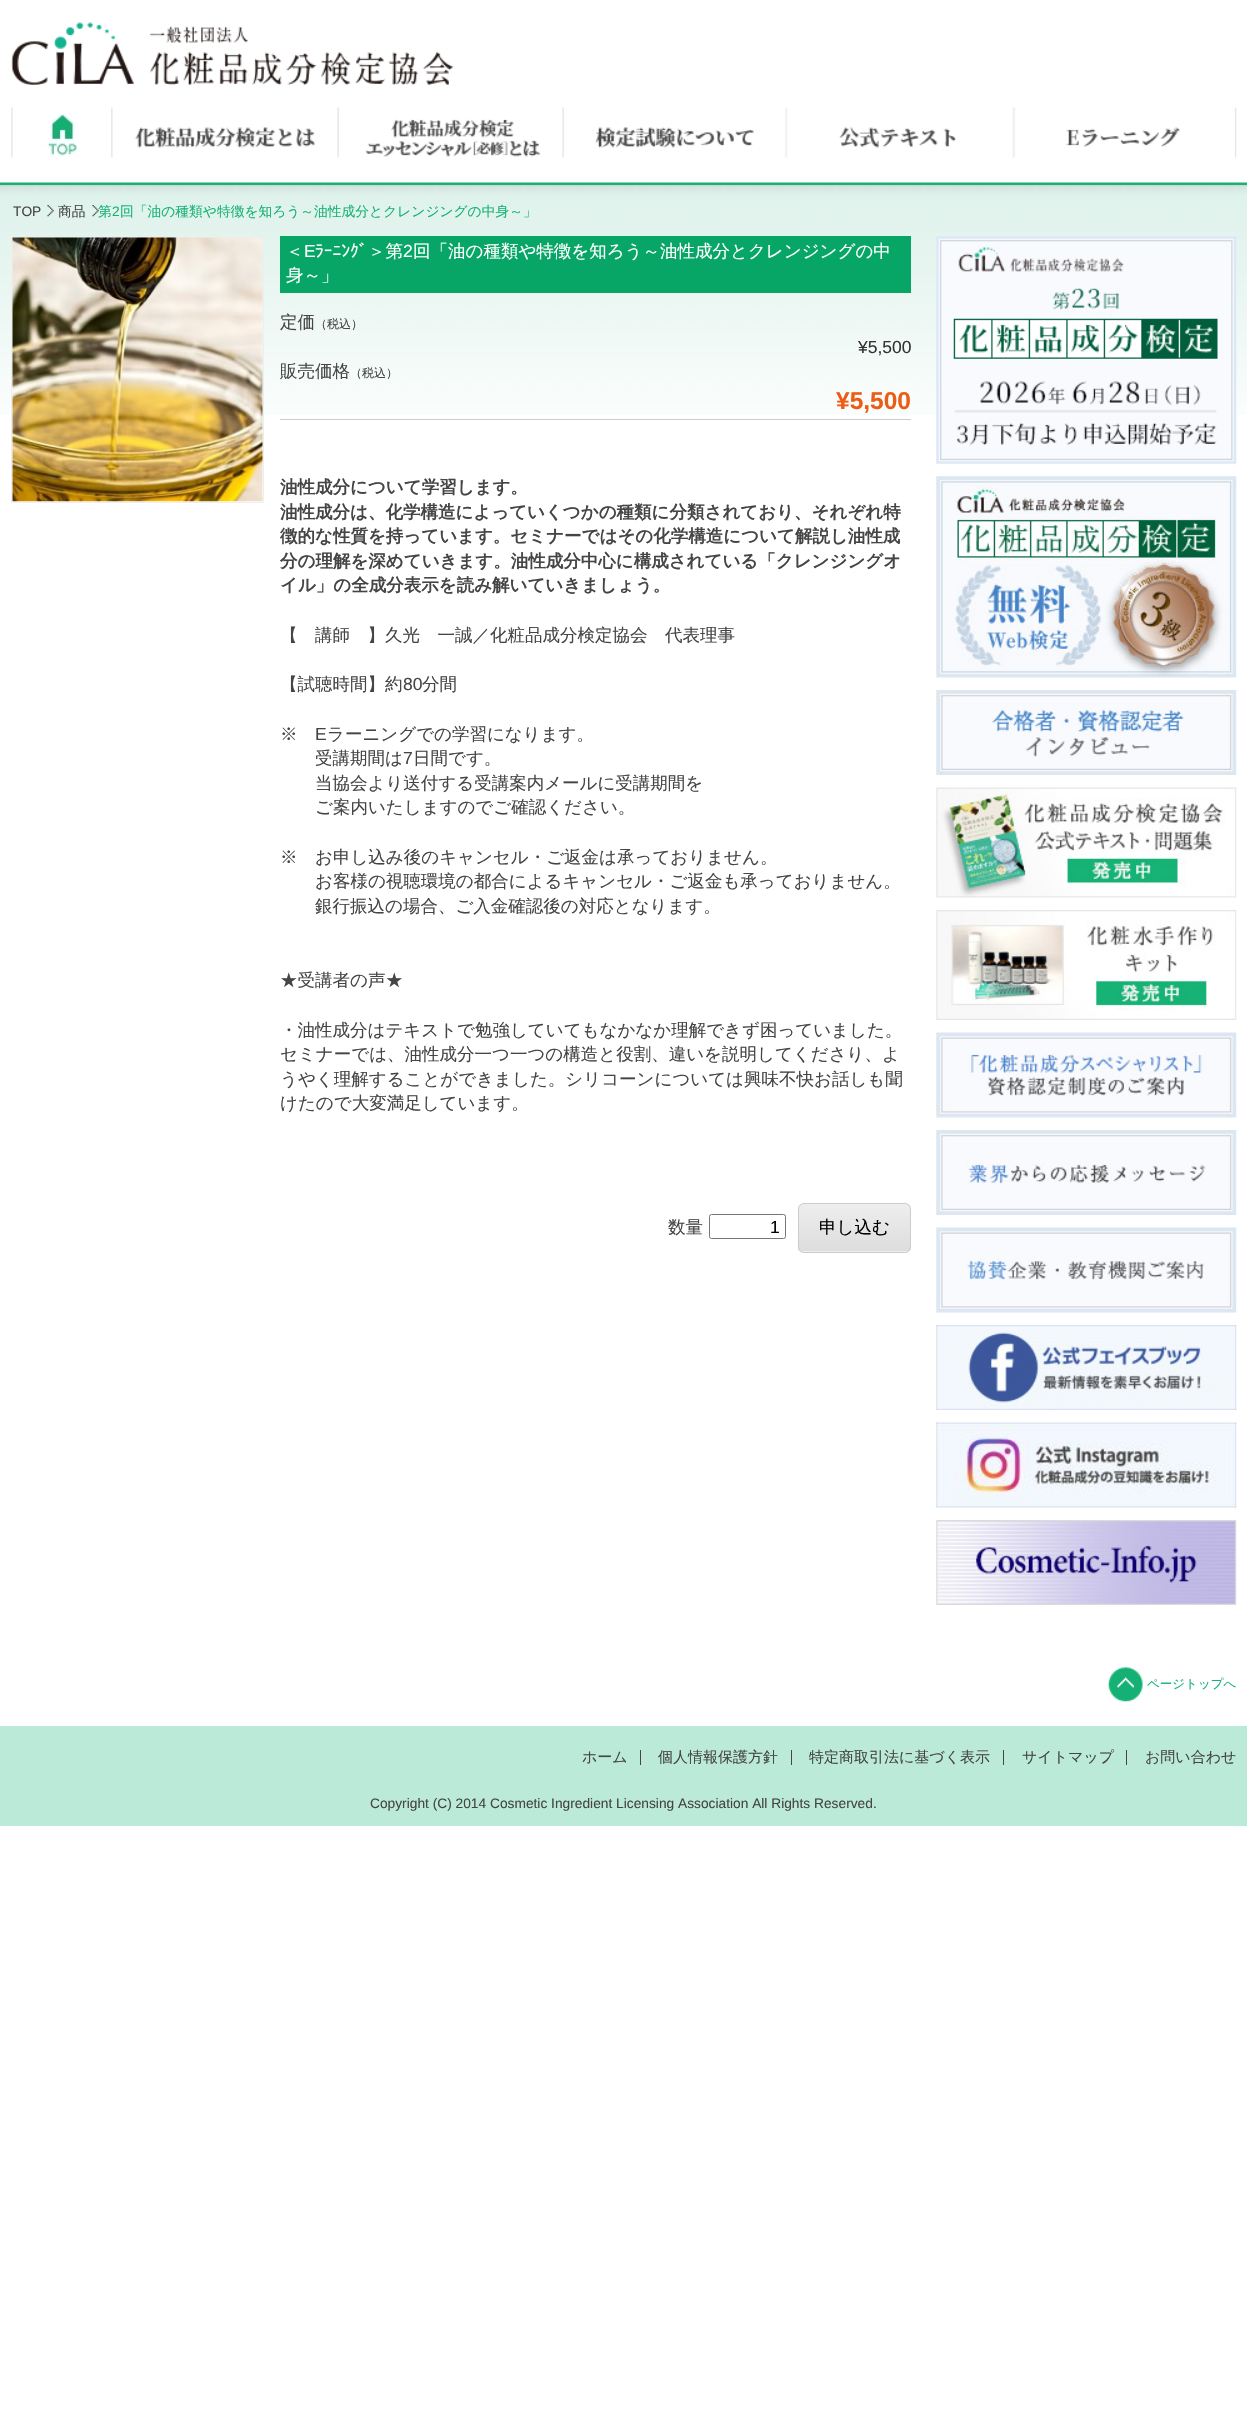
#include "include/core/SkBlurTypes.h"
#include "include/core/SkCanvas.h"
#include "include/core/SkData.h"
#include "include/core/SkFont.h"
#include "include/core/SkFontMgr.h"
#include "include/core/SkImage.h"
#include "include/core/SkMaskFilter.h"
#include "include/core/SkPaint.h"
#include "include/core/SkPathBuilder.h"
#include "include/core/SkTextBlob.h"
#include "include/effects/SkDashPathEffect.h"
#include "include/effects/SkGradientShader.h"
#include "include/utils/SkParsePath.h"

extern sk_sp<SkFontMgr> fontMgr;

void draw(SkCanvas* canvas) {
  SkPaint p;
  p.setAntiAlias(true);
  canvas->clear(SK_ColorWHITE);
  canvas->drawImageRect(SkImages::DeferredFromEncodedData(SkData::MakeFromFileName("images/1.png")), SkRect::MakeLTRB(11, 22, 454, 85), SkSamplingOptions());
  canvas->drawImageRect(SkImages::DeferredFromEncodedData(SkData::MakeFromFileName("images/2.png")), SkRect::MakeLTRB(11, 107, 78, 158), SkSamplingOptions());
  canvas->drawImageRect(SkImages::DeferredFromEncodedData(SkData::MakeFromFileName("images/3.png")), SkRect::MakeLTRB(111, 107, 316, 158), SkSamplingOptions());
  canvas->drawImageRect(SkImages::DeferredFromEncodedData(SkData::MakeFromFileName("images/4.png")), SkRect::MakeLTRB(337, 107, 541, 158), SkSamplingOptions());
  canvas->drawImageRect(SkImages::DeferredFromEncodedData(SkData::MakeFromFileName("images/5.png")), SkRect::MakeLTRB(562, 107, 786, 158), SkSamplingOptions());
  canvas->drawImageRect(SkImages::DeferredFromEncodedData(SkData::MakeFromFileName("images/6.png")), SkRect::MakeLTRB(786, 107, 956, 158), SkSamplingOptions());
  canvas->drawImageRect(SkImages::DeferredFromEncodedData(SkData::MakeFromFileName("images/7.png")), SkRect::MakeLTRB(1012, 107, 1237, 158), SkSamplingOptions());
  canvas->drawImageRect(SkImages::DeferredFromEncodedData(SkData::MakeFromFileName("images/8.png")), SkRect::MakeLTRB(0, 182, 1247, 415), SkSamplingOptions());
  canvas->drawImageRect(SkImages::DeferredFromEncodedData(SkData::MakeFromFileName("images/9.png")), SkRect::MakeLTRB(47, 205, 54, 217), SkSamplingOptions());
  canvas->drawImageRect(SkImages::DeferredFromEncodedData(SkData::MakeFromFileName("images/10.png")), SkRect::MakeLTRB(92, 205, 99, 217), SkSamplingOptions());
  p.setStyle(SkPaint::kStroke_Style);
  p.setStrokeWidth(1);
  p.setColor(SkColorSetRGB(238, 238, 238));
  canvas->drawRect(SkRect::MakeLTRB(11.5f, 236.5f, 263.5f, 502.5f), p);
  canvas->drawImageRect(SkImages::DeferredFromEncodedData(SkData::MakeFromFileName("images/11.png")), SkRect::MakeLTRB(12, 237, 263, 502), SkSamplingOptions());
  p.setStyle(SkPaint::kFill_Style);
  p.setColor(SkColorSetRGB(7, 165, 102));
  canvas->drawRect(SkRect::MakeLTRB(280, 236, 911, 293), p);
  p.setColor(SkColorSetRGB(204, 204, 204));
  canvas->drawRect(SkRect::MakeLTRB(280, 419, 911, 420), p);
  p.setStyle(SkPaint::kStroke_Style);
  p.setColor(SkColorSetRGB(118, 118, 118));
  canvas->drawRoundRect(SkRect::MakeLTRB(709.5f, 1214.5f, 785.5f, 1238.5f), 2, 2, p);
  canvas->save();
  canvas->clipPath(SkPathBuilder().moveTo(804, 1203).lineTo(905, 1203).cubicTo(908.5f, 1203, 911, 1205.5f, 911, 1209).lineTo(911, 1247).cubicTo(911, 1250.5f, 908.5f, 1253, 905, 1253).lineTo(804, 1253).cubicTo(800.5f, 1253, 798, 1250.5f, 798, 1247).lineTo(798, 1209).cubicTo(798, 1205.5f, 800.5f, 1203, 804, 1203).close().detach(), true);
  p.setStyle(SkPaint::kFill_Style);
  {
    const SkColor colors[] = {SkColorSetRGB(238, 238, 238), SkColorSetRGB(221, 221, 221)};
    const float stops[] = {0, 1};
    const SkPoint ends[] = {{854, 1204}, {854, 1251}};
    p.setShader(SkGradientShader::MakeLinear(ends, colors, stops, 2, SkTileMode::kClamp));
    p.setAlpha(255);
  }
  canvas->drawRect(SkRect::MakeLTRB(798, 1204, 911, 1251), p);
  {
    const SkColor colors[] = {SkColorSetRGB(238, 238, 238), SkColorSetRGB(221, 221, 221)};
    const float stops[] = {0, 1};
    const SkPoint ends[] = {{854, 1251}, {854, 1299}};
    p.setShader(SkGradientShader::MakeLinear(ends, colors, stops, 2, SkTileMode::kClamp));
    p.setAlpha(255);
  }
  canvas->drawRect(SkRect::MakeLTRB(798, 1251, 911, 1253), p);
  canvas->restore();
  p.setStyle(SkPaint::kStroke_Style);
  p.setShader(nullptr);
  p.setColor(SkColorSetRGB(204, 204, 204));
  canvas->drawRoundRect(SkRect::MakeLTRB(798.5f, 1203.5f, 910.5f, 1252.5f), 5.5f, 5.5f, p);
  canvas->drawImageRect(SkImages::DeferredFromEncodedData(SkData::MakeFromFileName("images/12.png")), SkRect::MakeLTRB(936, 236, 1237, 464), SkSamplingOptions());
  canvas->drawImageRect(SkImages::DeferredFromEncodedData(SkData::MakeFromFileName("images/13.png")), SkRect::MakeLTRB(936, 476, 1237, 678), SkSamplingOptions());
  canvas->drawImageRect(SkImages::DeferredFromEncodedData(SkData::MakeFromFileName("images/14.png")), SkRect::MakeLTRB(936, 690, 1237, 775), SkSamplingOptions());
  canvas->drawImageRect(SkImages::DeferredFromEncodedData(SkData::MakeFromFileName("images/15.png")), SkRect::MakeLTRB(936, 787, 1237, 898), SkSamplingOptions());
  canvas->drawImageRect(SkImages::DeferredFromEncodedData(SkData::MakeFromFileName("images/16.png")), SkRect::MakeLTRB(936, 910, 1237, 1020), SkSamplingOptions());
  canvas->drawImageRect(SkImages::DeferredFromEncodedData(SkData::MakeFromFileName("images/17.png")), SkRect::MakeLTRB(936, 1032, 1237, 1118), SkSamplingOptions());
  canvas->drawImageRect(SkImages::DeferredFromEncodedData(SkData::MakeFromFileName("images/18.png")), SkRect::MakeLTRB(936, 1130, 1237, 1215), SkSamplingOptions());
  canvas->drawImageRect(SkImages::DeferredFromEncodedData(SkData::MakeFromFileName("images/19.png")), SkRect::MakeLTRB(936, 1227, 1237, 1313), SkSamplingOptions());
  canvas->drawImageRect(SkImages::DeferredFromEncodedData(SkData::MakeFromFileName("images/20.png")), SkRect::MakeLTRB(936, 1325, 1237, 1410), SkSamplingOptions());
  canvas->drawImageRect(SkImages::DeferredFromEncodedData(SkData::MakeFromFileName("images/21.png")), SkRect::MakeLTRB(936, 1422, 1237, 1508), SkSamplingOptions());
  canvas->drawImageRect(SkImages::DeferredFromEncodedData(SkData::MakeFromFileName("images/22.png")), SkRect::MakeLTRB(936, 1520, 1237, 1605), SkSamplingOptions());
  canvas->drawImageRect(SkImages::DeferredFromEncodedData(SkData::MakeFromFileName("images/23.png")), SkRect::MakeLTRB(1108, 1667, 1143, 1702), SkSamplingOptions());
  p.setStyle(SkPaint::kFill_Style);
  p.setColor(SkColorSetRGB(187, 235, 216));
  canvas->drawRect(SkRect::MakeLTRB(0, 1726, 1247, 1826), p);
  p.setColor(SkColorSetRGB(69, 69, 69));
  canvas->drawRect(SkRect::MakeLTRB(640, 1750, 641, 1765), p);
  canvas->drawRect(SkRect::MakeLTRB(791, 1750, 792, 1765), p);
  canvas->drawRect(SkRect::MakeLTRB(1003, 1750, 1004, 1765), p);
  canvas->drawRect(SkRect::MakeLTRB(1126, 1750, 1127, 1765), p);
  SkFont font1(fontMgr->matchFamilyStyle("Liberation Sans", SkFontStyle::Normal()), 13.75f);
  font1.setSubpixel(true);
  canvas->drawString("TOP", 13, 216, font1, p);
  SkFont font2(fontMgr->matchFamilyStyle("WenQuanYi Zen Hei", SkFontStyle(500, SkFontStyle::kNormal_Width, SkFontStyle::kUpright_Slant)), 13.75f);
  font2.setSubpixel(true);
  canvas->drawString("商品", 58, 216, font2, p);
  p.setColor(SkColorSetRGB(21, 178, 117));
  canvas->drawString("第", 98, 216, font2, p);
  canvas->drawString("2", 112, 216, font1, p);
  canvas->drawString("回「油の種類や特徴を知ろう～油性成分とクレンジングの中身～」", 120, 216, font2, p);
  SkFont font3(fontMgr->matchFamilyStyle("WenQuanYi Zen Hei", SkFontStyle(500, SkFontStyle::kNormal_Width, SkFontStyle::kUpright_Slant)), 17.5f);
  font3.setSubpixel(true);
  p.setColor(SK_ColorWHITE);
  canvas->drawString("＜", 286, 257, font3, p);
  SkFont font4(fontMgr->matchFamilyStyle("Liberation Sans", SkFontStyle::Normal()), 17.5f);
  font4.setSubpixel(true);
  canvas->drawString("E", 304, 257, font4, p);
  SkFont font5(fontMgr->matchFamilyStyle("IPAPGothic", SkFontStyle::Normal()), 17.5f);
  font5.setSubpixel(true);
  canvas->drawString("ﾗｰﾆﾝｸﾞ", 315, 257, font5, p);
  canvas->drawString("＞第", 368, 257, font3, p);
  canvas->drawString("2", 403, 257, font4, p);
  canvas->drawString("回「油の種類や特徴を知ろう～油性成分とクレンジングの中", 413, 257, font3, p);
  canvas->drawString("身～」", 286, 281, font3, p);
  p.setColor(SkColorSetRGB(69, 69, 69));
  canvas->drawString("定価", 280, 328, font3, p);
  SkFont font6(fontMgr->matchFamilyStyle("WenQuanYi Zen Hei", SkFontStyle(500, SkFontStyle::kNormal_Width, SkFontStyle::kUpright_Slant)), 12);
  font6.setSubpixel(true);
  canvas->drawString("（税込）", 315, 328, font6, p);
  p.setColor(SkColorSetRGB(51, 51, 51));
  canvas->drawString("¥5,500", 858, 353, font4, p);
  p.setColor(SkColorSetRGB(69, 69, 69));
  canvas->drawString("販売価格", 280, 377, font3, p);
  canvas->drawString("（税込）", 350, 377, font6, p);
  SkFont font7(fontMgr->matchFamilyStyle("Liberation Sans", SkFontStyle::Bold()), 24.5f);
  font7.setSubpixel(true);
  p.setColor(SkColorSetRGB(237, 91, 20));
  canvas->drawString("¥5,500", 836, 409, font7, p);
  SkFont font8(fontMgr->matchFamilyStyle("WenQuanYi Zen Hei", SkFontStyle::Bold()), 17.5f);
  font8.setSubpixel(true);
  p.setColor(SkColorSetRGB(69, 69, 69));
  canvas->drawString("油性成分について学習します。", 280, 493, font8, p);
  canvas->drawString("油性成分は、化学構造によっていくつかの種類に分類されており、それぞれ特", 280, 518, font8, p);
  canvas->drawString("徴的な性質を持っています。セミナーではその化学構造について解説し油性成", 280, 542, font8, p);
  canvas->drawString("分の理解を深めていきます。油性成分中心に構成されている「クレンジングオ", 280, 567, font8, p);
  canvas->drawString("イル」の全成分表示を読み解いていきましょう。", 280, 591, font8, p);
  canvas->drawString("【　講師　】久光　一誠／化粧品成分検定協会　代表理事", 280, 641, font3, p);
  canvas->drawString("【試聴時間】約", 280, 690, font3, p);
  canvas->drawString("80", 403, 690, font4, p);
  canvas->drawString("分間", 422, 690, font3, p);
  canvas->drawString("※", 280, 740, font3, p);
  canvas->drawString("E", 315, 740, font4, p);
  canvas->drawString("ラーニングでの学習になります。", 327, 740, font3, p);
  canvas->drawString("受講期間は", 315, 764, font3, p);
  canvas->drawString("7", 403, 764, font4, p);
  canvas->drawString("日間です。", 413, 764, font3, p);
  canvas->drawString("当協会より送付する受講案内メールに受講期間を", 315, 789, font3, p);
  canvas->drawString("ご案内いたしますのでご確認ください。", 315, 813, font3, p);
  canvas->drawString("※　お申し込み後のキャンセル・ご返金は承っておりません。", 280, 863, font3, p);
  canvas->drawString("お客様の視聴環境の都合によるキャンセル・ご返金も承っておりません。", 315, 887, font3, p);
  canvas->drawString("銀行振込の場合、ご入金確認後の対応となります。", 315, 912, font3, p);
  canvas->drawString("★受講者の声★", 280, 986, font3, p);
  canvas->drawString("・油性成分はテキストで勉強していてもなかなか理解できず困っていました。", 280, 1036, font3, p);
  canvas->drawString("セミナーでは、油性成分一つ一つの構造と役割、違いを説明してくださり、よ", 280, 1060, font3, p);
  canvas->drawString("うやく理解することができました。シリコーンについては興味不快お話しも聞", 280, 1085, font3, p);
  canvas->drawString("けたので大変満足しています。", 280, 1109, font3, p);
  canvas->drawString("数量", 668, 1233, font3, p);
  p.setColor(SK_ColorBLACK);
  canvas->drawString("1", 770, 1233, font4, p);
  canvas->drawString("申し込む", 819, 1233, font3, p);
  SkFont font9(fontMgr->matchFamilyStyle("WenQuanYi Zen Hei", SkFontStyle(500, SkFontStyle::kNormal_Width, SkFontStyle::kUpright_Slant)), 12.5f);
  font9.setSubpixel(true);
  p.setColor(SkColorSetRGB(21, 178, 117));
  canvas->drawString("ページトップへ", 1147, 1688, font9, p);
  SkFont font10(fontMgr->matchFamilyStyle("WenQuanYi Zen Hei", SkFontStyle(500, SkFontStyle::kNormal_Width, SkFontStyle::kUpright_Slant)), 15);
  font10.setSubpixel(true);
  p.setColor(SkColorSetRGB(69, 69, 69));
  canvas->drawString("ホーム", 582, 1762, font10, p);
  canvas->drawString("個人情報保護方針", 658, 1762, font10, p);
  canvas->drawString("特定商取引法に基づく表示", 809, 1762, font10, p);
  canvas->drawString("サイトマップ", 1022, 1762, font10, p);
  canvas->drawString("お問い合わせ", 1145, 1762, font10, p);
  canvas->drawString("Copyright (C) 2014 Cosmetic Ingredient Licensing Association All Rights Reserved.", 370, 1808, font1, p);
}
